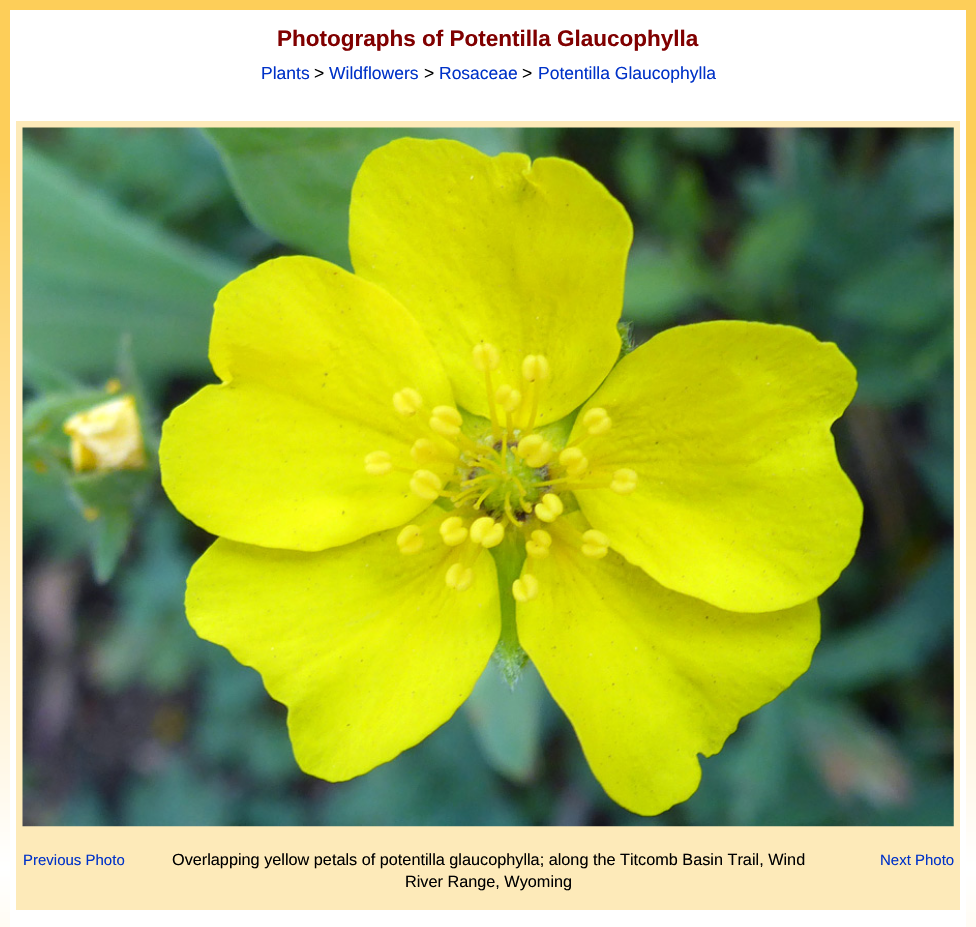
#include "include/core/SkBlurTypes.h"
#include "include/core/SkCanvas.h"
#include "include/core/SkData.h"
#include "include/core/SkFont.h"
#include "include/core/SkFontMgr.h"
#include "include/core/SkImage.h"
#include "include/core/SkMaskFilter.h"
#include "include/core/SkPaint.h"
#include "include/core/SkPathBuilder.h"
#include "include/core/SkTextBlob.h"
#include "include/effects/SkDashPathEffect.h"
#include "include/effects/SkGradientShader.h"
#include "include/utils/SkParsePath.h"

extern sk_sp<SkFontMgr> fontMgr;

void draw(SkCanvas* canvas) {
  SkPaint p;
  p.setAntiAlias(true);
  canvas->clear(SK_ColorWHITE);
  {
    const SkColor colors[] = {SkColorSetRGB(253, 206, 89), SK_ColorWHITE, SkColorSetRGB(253, 206, 89)};
    const float stops[] = {0.09f, 0.5f, 1};
    const SkPoint ends[] = {{488, 0}, {488, 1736}};
    p.setShader(SkGradientShader::MakeLinear(ends, colors, stops, 3, SkTileMode::kClamp));
    p.setAlpha(255);
  }
  canvas->drawRect(SkRect::MakeLTRB(0, 0, 976, 927), p);
  p.setShader(nullptr);
  p.setColor(SK_ColorWHITE);
  canvas->drawRect(SkRect::MakeLTRB(10, 10, 966, 927), p);
  p.setColor(SkColorSetRGB(253, 234, 185));
  canvas->drawRect(SkRect::MakeLTRB(16, 121, 960, 910), p);
  canvas->drawImageRect(SkImages::DeferredFromEncodedData(SkData::MakeFromFileName("images/1.png")), SkRect::MakeLTRB(22, 127, 954, 827), SkSamplingOptions());
  SkFont font1(fontMgr->matchFamilyStyle("Liberation Sans", SkFontStyle::Bold()), 22.5f);
  font1.setSubpixel(true);
  p.setColor(SkColorSetRGB(128, 0, 0));
  canvas->drawString("Photographs of Potentilla Glaucophylla", 277, 46, font1, p);
  SkFont font2(fontMgr->matchFamilyStyle("Liberation Sans", SkFontStyle::Normal()), 17.5f);
  font2.setSubpixel(true);
  p.setColor(SkColorSetRGB(0, 50, 200));
  canvas->drawString("Plants", 261, 79, font2, p);
  p.setColor(SK_ColorBLACK);
  canvas->drawString(">", 314, 79, font2, p);
  p.setColor(SkColorSetRGB(0, 50, 200));
  canvas->drawString("Wildflowers", 329, 79, font2, p);
  p.setColor(SK_ColorBLACK);
  canvas->drawString(">", 424, 79, font2, p);
  p.setColor(SkColorSetRGB(0, 50, 200));
  canvas->drawString("Rosaceae", 439, 79, font2, p);
  p.setColor(SK_ColorBLACK);
  canvas->drawString(">", 522, 79, font2, p);
  p.setColor(SkColorSetRGB(0, 50, 200));
  canvas->drawString("Potentilla Glaucophylla", 538, 79, font2, p);
  SkFont font3(fontMgr->matchFamilyStyle("Liberation Sans", SkFontStyle::Normal()), 15);
  font3.setSubpixel(true);
  canvas->drawString("Previous Photo", 23, 865, font3, p);
  SkFont font4(fontMgr->matchFamilyStyle("Liberation Sans", SkFontStyle::Normal()), 16.25f);
  font4.setSubpixel(true);
  p.setColor(SK_ColorBLACK);
  canvas->drawString("Overlapping yellow petals of potentilla glaucophylla; along the Titcomb Basin Trail, Wind", 172, 865, font4, p);
  canvas->drawString("River Range, Wyoming", 405, 887, font4, p);
  p.setColor(SkColorSetRGB(0, 50, 200));
  canvas->drawString("Next Photo", 880, 865, font3, p);
}
